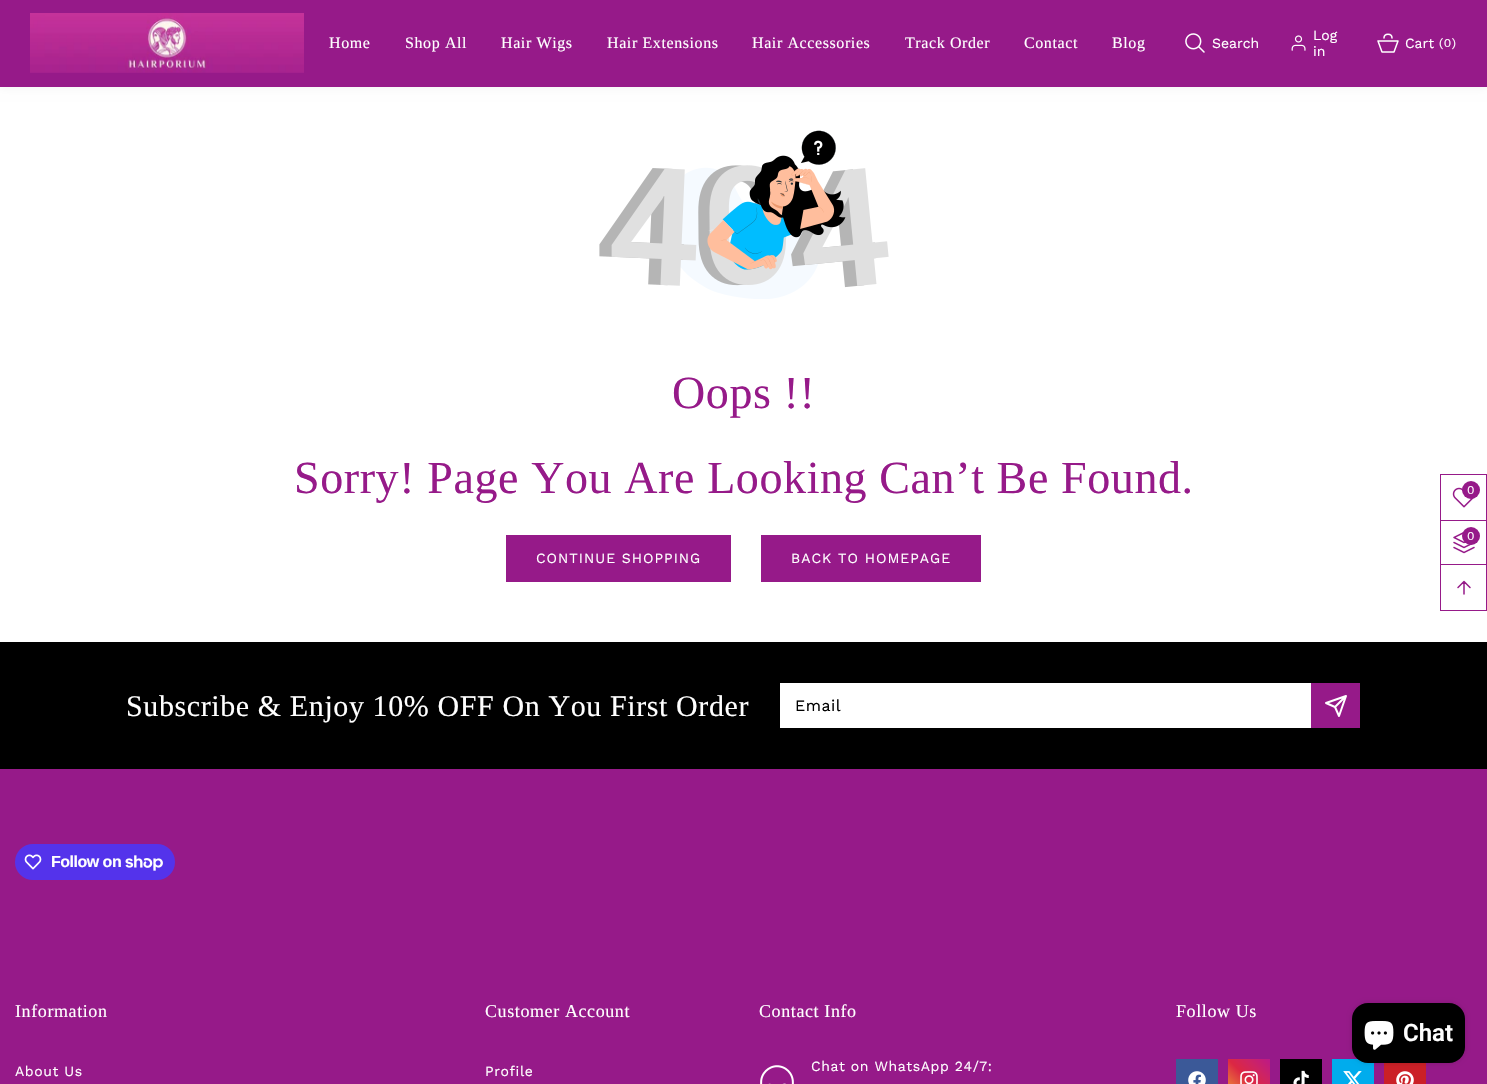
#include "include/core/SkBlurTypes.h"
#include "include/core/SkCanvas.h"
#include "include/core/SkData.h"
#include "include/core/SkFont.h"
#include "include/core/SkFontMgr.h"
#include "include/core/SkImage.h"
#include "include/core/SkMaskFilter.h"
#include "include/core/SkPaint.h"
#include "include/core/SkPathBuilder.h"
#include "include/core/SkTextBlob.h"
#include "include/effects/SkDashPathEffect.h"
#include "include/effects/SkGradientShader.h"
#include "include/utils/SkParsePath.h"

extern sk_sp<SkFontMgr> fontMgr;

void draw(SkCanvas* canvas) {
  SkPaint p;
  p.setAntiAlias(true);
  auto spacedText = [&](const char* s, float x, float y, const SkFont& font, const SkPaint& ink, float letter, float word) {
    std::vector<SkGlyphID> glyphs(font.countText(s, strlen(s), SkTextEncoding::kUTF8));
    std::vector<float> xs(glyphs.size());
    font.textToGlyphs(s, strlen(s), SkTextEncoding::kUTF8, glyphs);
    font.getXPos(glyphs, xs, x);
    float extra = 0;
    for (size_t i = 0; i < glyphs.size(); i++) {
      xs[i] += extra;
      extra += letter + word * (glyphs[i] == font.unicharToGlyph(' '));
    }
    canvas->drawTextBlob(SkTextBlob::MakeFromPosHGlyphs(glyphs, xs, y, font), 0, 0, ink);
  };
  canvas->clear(SK_ColorWHITE);
  p.setColor(SkColorSetARGB(15, 0, 0, 0));
  p.setMaskFilter(SkMaskFilter::MakeBlur(kNormal_SkBlurStyle, 5));
  canvas->drawRect(SkRect::MakeLTRB(0, -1, 1487, 87), p);
  p.setMaskFilter(nullptr);
  p.setColor(SkColorSetRGB(150, 26, 137));
  canvas->drawRect(SkRect::MakeLTRB(0, 0, 1487, 87), p);
  canvas->drawImageRect(SkImages::DeferredFromEncodedData(SkData::MakeFromFileName("images/1.png")), SkRect::MakeLTRB(30, 13, 304, 73), SkSamplingOptions());
  canvas->drawImageRect(SkImages::DeferredFromEncodedData(SkData::MakeFromFileName("images/2.png")), SkRect::MakeLTRB(1185, 33, 1205, 53), SkSamplingOptions());
  canvas->drawImageRect(SkImages::DeferredFromEncodedData(SkData::MakeFromFileName("images/3.png")), SkRect::MakeLTRB(1291, 35, 1306, 51), SkSamplingOptions());
  p.setStyle(SkPaint::kStroke_Style);
  p.setStrokeWidth(1.5f);
  p.setStrokeCap(SkPaint::kRound_Cap);
  p.setStrokeJoin(SkPaint::kRound_Join);
  p.setColor(SK_ColorWHITE);
  canvas->drawPath(SkPathBuilder().moveTo(1378, 41).lineTo(1398, 41).lineTo(1394, 52).lineTo(1382, 52).close().moveTo(1392, 38).cubicTo(1392, 33, 1384, 33, 1384, 38).detach(), p);
  canvas->drawImageRect(SkImages::DeferredFromEncodedData(SkData::MakeFromFileName("images/4.png")), SkRect::MakeLTRB(599, 130, 889, 299), SkSamplingOptions());
  p.setStyle(SkPaint::kFill_Style);
  p.setColor(SkColorSetRGB(150, 26, 137));
  canvas->drawRect(SkRect::MakeLTRB(506, 535, 731, 582), p);
  canvas->drawRect(SkRect::MakeLTRB(761, 535, 981, 582), p);
  p.setStyle(SkPaint::kStroke_Style);
  p.setStrokeWidth(1);
  p.setStrokeCap(SkPaint::kButt_Cap);
  p.setStrokeJoin(SkPaint::kMiter_Join);
  canvas->drawRect(SkRect::MakeLTRB(1440.5f, 474.5f, 1486.5f, 610.5f), p);
  canvas->drawImageRect(SkImages::DeferredFromEncodedData(SkData::MakeFromFileName("images/5.png")), SkRect::MakeLTRB(1452, 487, 1474, 508), SkSamplingOptions());
  p.setStyle(SkPaint::kFill_Style);
  canvas->drawCircle(1471, 490, 9, p);
  canvas->drawRect(SkRect::MakeLTRB(1441, 520, 1486, 521), p);
  canvas->drawRect(SkRect::MakeLTRB(1441, 564, 1486, 565), p);
  canvas->drawImageRect(SkImages::DeferredFromEncodedData(SkData::MakeFromFileName("images/6.png")), SkRect::MakeLTRB(1453, 531, 1475, 554), SkSamplingOptions());
  canvas->drawCircle(1471, 536, 9, p);
  p.setStyle(SkPaint::kStroke_Style);
  p.setStrokeWidth(1.5f);
  p.setStrokeCap(SkPaint::kRound_Cap);
  p.setStrokeJoin(SkPaint::kRound_Join);
  canvas->drawPath(SkPathBuilder().moveTo(1464, 594).lineTo(1464, 581.5f).moveTo(1464, 581.5f).lineTo(1470, 587.5f).moveTo(1464, 581.5f).lineTo(1458, 587.5f).detach(), p);
  p.setStyle(SkPaint::kFill_Style);
  p.setColor(SK_ColorBLACK);
  canvas->drawRect(SkRect::MakeLTRB(0, 642, 1487, 769), p);
  p.setColor(SK_ColorWHITE);
  canvas->drawRect(SkRect::MakeLTRB(780, 683, 1311, 728), p);
  p.setColor(SkColorSetRGB(150, 26, 137));
  canvas->drawRect(SkRect::MakeLTRB(1311, 683, 1360, 728), p);
  p.setStyle(SkPaint::kStroke_Style);
  p.setStrokeWidth(2);
  p.setColor(SK_ColorWHITE);
  canvas->drawPath(SkPathBuilder().moveTo(1346, 696).lineTo(1335, 707).moveTo(1346, 696).lineTo(1339, 716).lineTo(1335, 707).lineTo(1326, 703).close().detach(), p);
  p.setStyle(SkPaint::kFill_Style);
  p.setColor(SkColorSetRGB(150, 26, 137));
  canvas->drawRect(SkRect::MakeLTRB(0, 769, 1487, 1084), p);
  p.setColor(SkColorSetRGB(84, 51, 235));
  canvas->drawRoundRect(SkRect::MakeLTRB(15, 844, 175, 880), 18, 18, p);
  canvas->drawImageRect(SkImages::DeferredFromEncodedData(SkData::MakeFromFileName("images/7.png")), SkRect::MakeLTRB(24, 854, 42, 870), SkSamplingOptions());
  canvas->drawImageRect(SkImages::DeferredFromEncodedData(SkData::MakeFromFileName("images/8.png")), SkRect::MakeLTRB(125, 855, 163, 871), SkSamplingOptions());
  canvas->drawImageRect(SkImages::DeferredFromEncodedData(SkData::MakeFromFileName("images/9.png")), SkRect::MakeLTRB(760, 1065, 794, 1084), SkSamplingOptions());
  p.setColor(SkColorSetRGB(59, 89, 152));
  canvas->drawRect(SkRect::MakeLTRB(1176, 1059, 1218, 1084), p);
  canvas->drawImageRect(SkImages::DeferredFromEncodedData(SkData::MakeFromFileName("images/10.png")), SkRect::MakeLTRB(1188, 1071, 1206, 1084), SkSamplingOptions());
  {
    const SkColor colors[] = {SkColorSetRGB(240, 148, 51), SkColorSetRGB(230, 104, 60), SkColorSetRGB(220, 39, 67), SkColorSetRGB(204, 35, 102), SkColorSetRGB(188, 24, 136)};
    const float stops[] = {0, 0.25f, 0.5f, 0.75f, 1};
    const SkPoint ends[] = {{1228, 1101}, {1270, 1059}};
    p.setShader(SkGradientShader::MakeLinear(ends, colors, stops, 5, SkTileMode::kClamp));
    p.setAlpha(255);
  }
  canvas->drawRect(SkRect::MakeLTRB(1228, 1059, 1270, 1084), p);
  canvas->drawImageRect(SkImages::DeferredFromEncodedData(SkData::MakeFromFileName("images/11.png")), SkRect::MakeLTRB(1240, 1071, 1258, 1084), SkSamplingOptions());
  p.setShader(nullptr);
  p.setColor(SK_ColorBLACK);
  canvas->drawRect(SkRect::MakeLTRB(1280, 1059, 1322, 1084), p);
  canvas->drawImageRect(SkImages::DeferredFromEncodedData(SkData::MakeFromFileName("images/12.png")), SkRect::MakeLTRB(1293, 1070, 1309, 1084), SkSamplingOptions());
  p.setColor(SkColorSetRGB(0, 172, 237));
  canvas->drawRect(SkRect::MakeLTRB(1332, 1059, 1374, 1084), p);
  canvas->drawImageRect(SkImages::DeferredFromEncodedData(SkData::MakeFromFileName("images/13.png")), SkRect::MakeLTRB(1343, 1071, 1362, 1084), SkSamplingOptions());
  p.setColor(SkColorSetRGB(203, 32, 39));
  canvas->drawRect(SkRect::MakeLTRB(1384, 1063, 1426, 1084), p);
  canvas->drawImageRect(SkImages::DeferredFromEncodedData(SkData::MakeFromFileName("images/14.png")), SkRect::MakeLTRB(1396, 1071, 1414, 1084), SkSamplingOptions());
  p.setColor(SkColorSetARGB(38, 0, 0, 0));
  p.setMaskFilter(SkMaskFilter::MakeBlur(kNormal_SkBlurStyle, 2.5f));
  canvas->drawRoundRect(SkRect::MakeLTRB(1352, 1003, 1465, 1063), 16, 16, p);
  p.setMaskFilter(nullptr);
  p.setColor(SK_ColorBLACK);
  canvas->drawRoundRect(SkRect::MakeLTRB(1352, 1003, 1465, 1063), 16, 16, p);
  canvas->drawImageRect(SkImages::DeferredFromEncodedData(SkData::MakeFromFileName("images/15.png")), SkRect::MakeLTRB(1364, 1021, 1394, 1050), SkSamplingOptions());
  SkFont font1(fontMgr->matchFamilyStyle("Liberation Serif", SkFontStyle::Normal()), 16);
  font1.setSubpixel(true);
  p.setColor(SK_ColorWHITE);
  spacedText("Home", 329, 48, font1, p, 0.6f, 0);
  spacedText("Shop All", 405, 48, font1, p, 0.6f, 0);
  spacedText("Hair Wigs", 501, 48, font1, p, 0.6f, 0);
  spacedText("Hair Extensions", 607, 48, font1, p, 0.6f, 0);
  spacedText("Hair Accessories", 752, 48, font1, p, 0.6f, 0);
  spacedText("Track Order", 905, 48, font1, p, 0.6f, 0);
  spacedText("Contact", 1024, 48, font1, p, 0.6f, 0);
  spacedText("Blog", 1112, 48, font1, p, 0.6f, 0);
  SkFont font2(fontMgr->matchFamilyStyle("Work Sans", SkFontStyle::Normal()), 14);
  font2.setSubpixel(true);
  canvas->drawString("Search", 1212, 48, font2, p);
  canvas->drawString("Log", 1313, 40, font2, p);
  canvas->drawString("in", 1313, 56, font2, p);
  canvas->drawString("Cart", 1405, 48, font2, p);
  SkFont font3(fontMgr->matchFamilyStyle("Work Sans", SkFontStyle::Normal()), 12);
  font3.setSubpixel(true);
  spacedText("(0)", 1439, 47, font3, p, 0.6f, 0);
  SkFont font4(fontMgr->matchFamilyStyle("Liberation Serif", SkFontStyle::Normal()), 46);
  font4.setSubpixel(true);
  p.setColor(SkColorSetRGB(150, 26, 137));
  spacedText("Oops !!", 672, 408, font4, p, 0.6f, 0);
  spacedText("Sorry! Page You Are Looking Can’t Be Found.", 294, 493, font4, p, 0.6f, 0);
  p.setColor(SK_ColorWHITE);
  spacedText("CONTINUE SHOPPING", 536, 563, font2, p, 1, 0);
  spacedText("BACK TO HOMEPAGE", 791, 563, font2, p, 1, 0);
  spacedText("0", 1467, 494, font3, p, 0.6f, 0);
  spacedText("0", 1467, 540, font3, p, 0.6f, 0);
  SkFont font5(fontMgr->matchFamilyStyle("Liberation Serif", SkFontStyle::Normal()), 30);
  font5.setSubpixel(true);
  spacedText("Subscribe & Enjoy 10% OFF On You First Order", 126, 716, font5, p, 0.6f, 0);
  SkFont font6(fontMgr->matchFamilyStyle("Work Sans", SkFontStyle::Normal()), 16);
  font6.setSubpixel(true);
  p.setColor(SK_ColorBLACK);
  spacedText("Email", 795, 711, font6, p, 0.5f, 0);
  SkFont font7(fontMgr->matchFamilyStyle("Liberation Sans", SkFontStyle::Bold()), 16);
  font7.setSubpixel(true);
  p.setColor(SK_ColorWHITE);
  spacedText("Follow on", 51, 867, font7, p, -0.5f, 0);
  SkFont font8(fontMgr->matchFamilyStyle("Liberation Serif", SkFontStyle::Normal()), 18);
  font8.setSubpixel(true);
  spacedText("Information", 15, 1017, font8, p, 0.6f, 0);
  spacedText("About Us", 15, 1076, font2, p, 0.6f, 0);
  spacedText("Customer Account", 485, 1017, font8, p, 0.6f, 0);
  spacedText("Profile", 485, 1076, font2, p, 0.6f, 0);
  spacedText("Contact Info", 759, 1017, font8, p, 0.6f, 0);
  spacedText("Chat on WhatsApp 24/7:", 811, 1071, font2, p, 0.6f, 0);
  spacedText("Follow Us", 1176, 1017, font8, p, 0.6f, 0);
  SkFont font9(fontMgr->matchFamilyStyle("Roboto", SkFontStyle(600, SkFontStyle::kNormal_Width, SkFontStyle::kUpright_Slant)), 24);
  font9.setSubpixel(true);
  canvas->drawString("Chat", 1403, 1041, font9, p);
}
